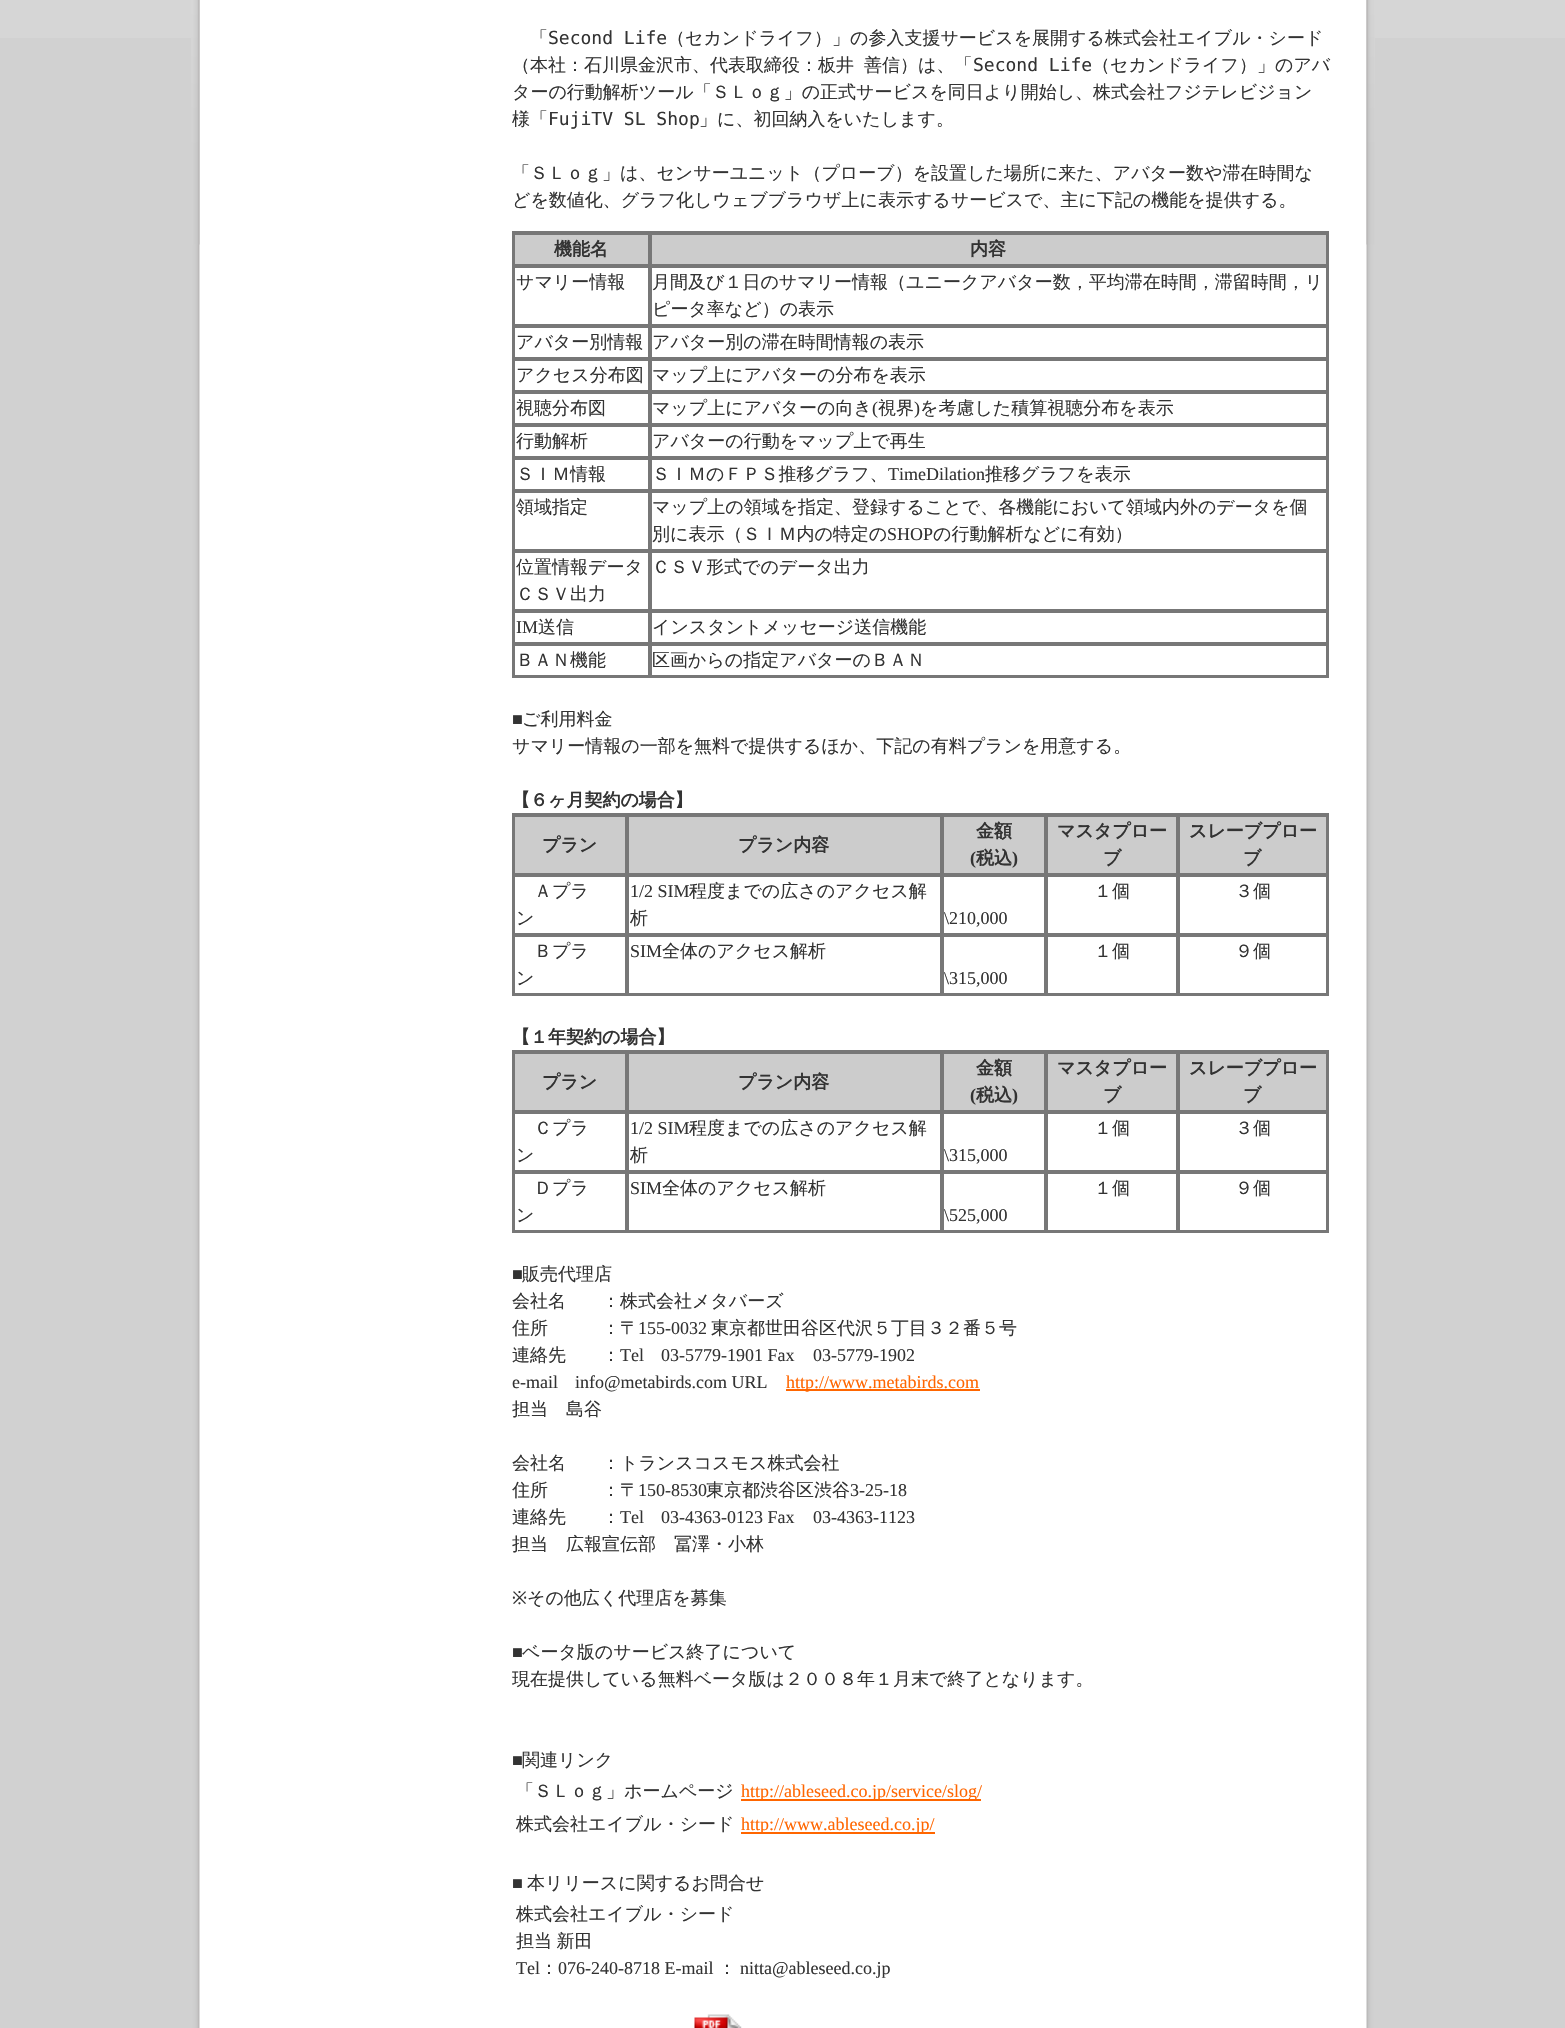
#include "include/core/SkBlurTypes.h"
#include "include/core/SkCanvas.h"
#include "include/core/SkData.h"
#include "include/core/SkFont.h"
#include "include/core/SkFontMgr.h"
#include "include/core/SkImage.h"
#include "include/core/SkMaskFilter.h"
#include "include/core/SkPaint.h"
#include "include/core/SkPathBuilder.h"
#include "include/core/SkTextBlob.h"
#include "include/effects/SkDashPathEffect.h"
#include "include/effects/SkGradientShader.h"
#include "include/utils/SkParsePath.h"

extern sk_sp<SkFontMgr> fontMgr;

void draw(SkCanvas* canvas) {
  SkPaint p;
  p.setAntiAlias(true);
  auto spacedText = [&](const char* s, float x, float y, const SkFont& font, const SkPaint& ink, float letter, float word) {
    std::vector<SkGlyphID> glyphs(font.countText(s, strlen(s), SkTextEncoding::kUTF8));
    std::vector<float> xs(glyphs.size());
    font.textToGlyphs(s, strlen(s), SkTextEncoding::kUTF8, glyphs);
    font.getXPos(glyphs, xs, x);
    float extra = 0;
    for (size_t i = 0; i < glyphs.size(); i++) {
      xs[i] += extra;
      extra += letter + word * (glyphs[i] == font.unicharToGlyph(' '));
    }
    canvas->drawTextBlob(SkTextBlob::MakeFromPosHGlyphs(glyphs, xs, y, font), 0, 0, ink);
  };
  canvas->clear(SkColorSetRGB(209, 209, 209));
  p.setColor(SkColorSetRGB(214, 214, 214));
  canvas->drawRect(SkRect::MakeLTRB(0, 0, 1565, 38), p);
  canvas->drawImageRect(SkImages::DeferredFromEncodedData(SkData::MakeFromFileName("images/1.png")), SkRect::MakeLTRB(191, 0, 1375, 2028), SkSamplingOptions());
  canvas->drawImageRect(SkImages::DeferredFromEncodedData(SkData::MakeFromFileName("images/2.png")), SkRect::MakeLTRB(191, 0, 200, 245), SkSamplingOptions());
  p.setStyle(SkPaint::kStroke_Style);
  p.setStrokeWidth(2);
  p.setColor(SkColorSetRGB(119, 119, 119));
  canvas->drawRect(SkRect::MakeLTRB(513, 232, 1328, 677), p);
  p.setStyle(SkPaint::kFill_Style);
  p.setColor(SkColorSetRGB(204, 204, 204));
  canvas->drawRect(SkRect::MakeLTRB(515, 235, 1326, 264), p);
  p.setStyle(SkPaint::kStroke_Style);
  p.setColor(SkColorSetRGB(119, 119, 119));
  canvas->drawRect(SkRect::MakeLTRB(514, 234, 649, 265), p);
  canvas->drawRect(SkRect::MakeLTRB(651, 234, 1327, 265), p);
  canvas->drawRect(SkRect::MakeLTRB(514, 267, 649, 325), p);
  canvas->drawRect(SkRect::MakeLTRB(651, 267, 1327, 325), p);
  canvas->drawRect(SkRect::MakeLTRB(514, 327, 649, 358), p);
  canvas->drawRect(SkRect::MakeLTRB(651, 327, 1327, 358), p);
  canvas->drawRect(SkRect::MakeLTRB(514, 360, 649, 391), p);
  canvas->drawRect(SkRect::MakeLTRB(651, 360, 1327, 391), p);
  canvas->drawRect(SkRect::MakeLTRB(514, 393, 649, 424), p);
  canvas->drawRect(SkRect::MakeLTRB(651, 393, 1327, 424), p);
  canvas->drawRect(SkRect::MakeLTRB(514, 426, 649, 457), p);
  canvas->drawRect(SkRect::MakeLTRB(651, 426, 1327, 457), p);
  canvas->drawRect(SkRect::MakeLTRB(514, 459, 649, 490), p);
  canvas->drawRect(SkRect::MakeLTRB(651, 459, 1327, 490), p);
  canvas->drawRect(SkRect::MakeLTRB(514, 492, 649, 550), p);
  canvas->drawRect(SkRect::MakeLTRB(651, 492, 1327, 550), p);
  canvas->drawRect(SkRect::MakeLTRB(514, 552, 649, 610), p);
  canvas->drawRect(SkRect::MakeLTRB(651, 552, 1327, 610), p);
  canvas->drawRect(SkRect::MakeLTRB(514, 612, 649, 643), p);
  canvas->drawRect(SkRect::MakeLTRB(651, 612, 1327, 643), p);
  canvas->drawRect(SkRect::MakeLTRB(514, 645, 649, 676), p);
  canvas->drawRect(SkRect::MakeLTRB(651, 645, 1327, 676), p);
  canvas->drawRect(SkRect::MakeLTRB(513, 814, 1328, 995), p);
  p.setStyle(SkPaint::kFill_Style);
  p.setColor(SkColorSetRGB(204, 204, 204));
  canvas->drawRect(SkRect::MakeLTRB(515, 817, 1326, 873), p);
  p.setStyle(SkPaint::kStroke_Style);
  p.setColor(SkColorSetRGB(119, 119, 119));
  canvas->drawRect(SkRect::MakeLTRB(514, 816, 626, 874), p);
  canvas->drawRect(SkRect::MakeLTRB(628, 816, 941, 874), p);
  canvas->drawRect(SkRect::MakeLTRB(943, 816, 1045, 874), p);
  canvas->drawRect(SkRect::MakeLTRB(1047, 816, 1177, 874), p);
  canvas->drawRect(SkRect::MakeLTRB(1179, 816, 1327, 874), p);
  canvas->drawRect(SkRect::MakeLTRB(514, 876, 626, 934), p);
  canvas->drawRect(SkRect::MakeLTRB(628, 876, 941, 934), p);
  canvas->drawRect(SkRect::MakeLTRB(1047, 876, 1177, 934), p);
  canvas->drawRect(SkRect::MakeLTRB(1179, 876, 1327, 934), p);
  canvas->drawRect(SkRect::MakeLTRB(943, 876, 1045, 934), p);
  canvas->drawRect(SkRect::MakeLTRB(514, 936, 626, 994), p);
  canvas->drawRect(SkRect::MakeLTRB(628, 936, 941, 994), p);
  canvas->drawRect(SkRect::MakeLTRB(1047, 936, 1177, 994), p);
  canvas->drawRect(SkRect::MakeLTRB(1179, 936, 1327, 994), p);
  canvas->drawRect(SkRect::MakeLTRB(943, 936, 1045, 994), p);
  canvas->drawRect(SkRect::MakeLTRB(513, 1051, 1328, 1232), p);
  p.setStyle(SkPaint::kFill_Style);
  p.setColor(SkColorSetRGB(204, 204, 204));
  canvas->drawRect(SkRect::MakeLTRB(515, 1054, 1326, 1110), p);
  p.setStyle(SkPaint::kStroke_Style);
  p.setColor(SkColorSetRGB(119, 119, 119));
  canvas->drawRect(SkRect::MakeLTRB(514, 1053, 626, 1111), p);
  canvas->drawRect(SkRect::MakeLTRB(628, 1053, 941, 1111), p);
  canvas->drawRect(SkRect::MakeLTRB(943, 1053, 1045, 1111), p);
  canvas->drawRect(SkRect::MakeLTRB(1047, 1053, 1177, 1111), p);
  canvas->drawRect(SkRect::MakeLTRB(1179, 1053, 1327, 1111), p);
  canvas->drawRect(SkRect::MakeLTRB(514, 1113, 626, 1171), p);
  canvas->drawRect(SkRect::MakeLTRB(628, 1113, 941, 1171), p);
  canvas->drawRect(SkRect::MakeLTRB(1047, 1113, 1177, 1171), p);
  canvas->drawRect(SkRect::MakeLTRB(1179, 1113, 1327, 1171), p);
  canvas->drawRect(SkRect::MakeLTRB(943, 1113, 1045, 1171), p);
  canvas->drawRect(SkRect::MakeLTRB(514, 1173, 626, 1231), p);
  canvas->drawRect(SkRect::MakeLTRB(628, 1173, 941, 1231), p);
  canvas->drawRect(SkRect::MakeLTRB(1047, 1173, 1177, 1231), p);
  canvas->drawRect(SkRect::MakeLTRB(1179, 1173, 1327, 1231), p);
  canvas->drawRect(SkRect::MakeLTRB(943, 1173, 1045, 1231), p);
  p.setStyle(SkPaint::kFill_Style);
  p.setColor(SkColorSetRGB(255, 102, 0));
  canvas->drawRect(SkRect::MakeLTRB(786, 1389, 980, 1391), p);
  canvas->drawRect(SkRect::MakeLTRB(741, 1799, 981, 1801), p);
  canvas->drawRect(SkRect::MakeLTRB(741, 1832, 935, 1834), p);
  canvas->drawImageRect(SkImages::DeferredFromEncodedData(SkData::MakeFromFileName("images/3.png")), SkRect::MakeLTRB(694, 2014, 742, 2028), SkSamplingOptions());
  canvas->drawImageRect(SkImages::DeferredFromEncodedData(SkData::MakeFromFileName("images/4.png")), SkRect::MakeLTRB(1366, 0, 1375, 245), SkSamplingOptions());
  SkFont font1(fontMgr->matchFamilyStyle("WenQuanYi Zen Hei", SkFontStyle(500, SkFontStyle::kNormal_Width, SkFontStyle::kUpright_Slant)), 18);
  font1.setSubpixel(true);
  p.setColor(SkColorSetRGB(51, 51, 51));
  canvas->drawString("「", 530, 44, font1, p);
  SkFont font2(fontMgr->matchFamilyStyle("DejaVu Sans Mono", SkFontStyle::Normal()), 18);
  font2.setSubpixel(true);
  canvas->drawString("Second Life", 548, 44, font2, p);
  canvas->drawString("（セカンドライフ）」の参入支援サービスを展開する株式会社エイブル・シード", 667, 44, font1, p);
  canvas->drawString("（本社：石川県金沢市、代表取締役：板井", 512, 71, font1, p);
  canvas->drawString("善信）は、「", 864, 71, font1, p);
  canvas->drawString("Second Life", 973, 71, font2, p);
  canvas->drawString("（セカンドライフ）」のアバ", 1092, 71, font1, p);
  canvas->drawString("ターの行動解析ツール「ＳＬｏｇ」の正式サービスを同日より開始し、株式会社フジテレビジョン", 512, 98, font1, p);
  canvas->drawString("様「", 512, 125, font1, p);
  canvas->drawString("FujiTV SL Shop", 548, 125, font2, p);
  canvas->drawString("」に、初回納入をいたします。", 699, 125, font1, p);
  canvas->drawString("「ＳＬｏｇ」は、センサーユニット（プローブ）を設置した場所に来た、アバター数や滞在時間な", 512, 179, font1, p);
  canvas->drawString("どを数値化、グラフ化しウェブブラウザ上に表示するサービスで、主に下記の機能を提供する。", 512, 206, font1, p);
  SkFont font3(fontMgr->matchFamilyStyle("WenQuanYi Zen Hei", SkFontStyle::Bold()), 18);
  font3.setSubpixel(true);
  canvas->drawString("機能名", 554, 255, font3, p);
  canvas->drawString("内容", 970, 255, font3, p);
  canvas->drawString("サマリー情報", 516, 288, font1, p);
  canvas->drawString("月間及び１日のサマリー情報（ユニークアバター数，平均滞在時間，滞留時間，リ", 652, 288, font1, p);
  canvas->drawString("ピータ率など）の表示", 652, 315, font1, p);
  canvas->drawString("アバター別情報", 516, 348, font1, p);
  canvas->drawString("アバター別の滞在時間情報の表示", 652, 348, font1, p);
  canvas->drawString("アクセス分布図", 516, 381, font1, p);
  canvas->drawString("マップ上にアバターの分布を表示", 652, 381, font1, p);
  canvas->drawString("視聴分布図", 516, 414, font1, p);
  canvas->drawString("マップ上にアバターの向き", 652, 414, font1, p);
  SkFont font4(fontMgr->matchFamilyStyle("Liberation Serif", SkFontStyle::Normal()), 18);
  font4.setSubpixel(true);
  canvas->drawString("(", 872, 414, font4, p);
  canvas->drawString("視界", 878, 414, font1, p);
  canvas->drawString(")", 914, 414, font4, p);
  canvas->drawString("を考慮した積算視聴分布を表示", 920, 414, font1, p);
  canvas->drawString("行動解析", 516, 447, font1, p);
  canvas->drawString("アバターの行動をマップ上で再生", 652, 447, font1, p);
  canvas->drawString("ＳＩＭ情報", 516, 480, font1, p);
  canvas->drawString("ＳＩＭのＦＰＳ推移グラフ、", 652, 480, font1, p);
  canvas->drawString("TimeDilation", 888, 480, font4, p);
  canvas->drawString("推移グラフを表示", 985, 480, font1, p);
  canvas->drawString("領域指定", 516, 513, font1, p);
  canvas->drawString("マップ上の領域を指定、登録することで、各機能において領域内外のデータを個", 652, 513, font1, p);
  canvas->drawString("別に表示（ＳＩＭ内の特定の", 652, 540, font1, p);
  canvas->drawString("SHOP", 887, 540, font4, p);
  canvas->drawString("の行動解析などに有効）", 933, 540, font1, p);
  canvas->drawString("位置情報データ", 516, 573, font1, p);
  canvas->drawString("ＣＳＶ出力", 516, 600, font1, p);
  canvas->drawString("ＣＳＶ形式でのデータ出力", 652, 573, font1, p);
  canvas->drawString("IM", 516, 633, font4, p);
  canvas->drawString("送信", 538, 633, font1, p);
  canvas->drawString("インスタントメッセージ送信機能", 652, 633, font1, p);
  canvas->drawString("ＢＡＮ機能", 516, 666, font1, p);
  canvas->drawString("区画からの指定アバターのＢＡＮ", 652, 666, font1, p);
  canvas->drawString("■", 512, 725, font4, p);
  canvas->drawString("ご利用料金", 522, 725, font1, p);
  canvas->drawString("サマリー情報の一部を無料で提供するほか、下記の有料プランを用意する。", 512, 752, font1, p);
  canvas->drawString("【６ヶ月契約の場合】", 512, 806, font3, p);
  canvas->drawString("プラン", 542, 851, font3, p);
  canvas->drawString("プラン内容", 738, 851, font3, p);
  canvas->drawString("金額", 976, 837, font3, p);
  SkFont font5(fontMgr->matchFamilyStyle("Liberation Serif", SkFontStyle::Bold()), 18);
  font5.setSubpixel(true);
  canvas->drawString("(", 970, 864, font5, p);
  canvas->drawString("税込", 976, 864, font3, p);
  canvas->drawString(")", 1012, 864, font5, p);
  canvas->drawString("マスタプロー", 1057, 837, font3, p);
  canvas->drawString("ブ", 1103, 864, font3, p);
  canvas->drawString("スレーブプロー", 1189, 837, font3, p);
  canvas->drawString("ブ", 1243, 864, font3, p);
  canvas->drawString("Ａプラ", 534, 897, font1, p);
  canvas->drawString("ン", 516, 924, font1, p);
  canvas->drawString("1/2 SIM", 630, 897, font4, p);
  canvas->drawString("程度までの広さのアクセス解", 689, 897, font1, p);
  canvas->drawString("析", 630, 924, font1, p);
  canvas->drawString("１個", 1094, 897, font1, p);
  canvas->drawString("３個", 1235, 897, font1, p);
  canvas->drawString("\\210,000", 944, 924, font4, p);
  canvas->drawString("Ｂプラ", 534, 957, font1, p);
  canvas->drawString("ン", 516, 984, font1, p);
  canvas->drawString("SIM", 630, 957, font4, p);
  canvas->drawString("全体のアクセス解析", 662, 957, font1, p);
  canvas->drawString("１個", 1094, 957, font1, p);
  canvas->drawString("９個", 1235, 957, font1, p);
  canvas->drawString("\\315,000", 944, 984, font4, p);
  canvas->drawString("【１年契約の場合】", 512, 1043, font3, p);
  canvas->drawString("プラン", 542, 1088, font3, p);
  canvas->drawString("プラン内容", 738, 1088, font3, p);
  canvas->drawString("金額", 976, 1074, font3, p);
  canvas->drawString("(", 970, 1101, font5, p);
  canvas->drawString("税込", 976, 1101, font3, p);
  canvas->drawString(")", 1012, 1101, font5, p);
  canvas->drawString("マスタプロー", 1057, 1074, font3, p);
  canvas->drawString("ブ", 1103, 1101, font3, p);
  canvas->drawString("スレーブプロー", 1189, 1074, font3, p);
  canvas->drawString("ブ", 1243, 1101, font3, p);
  canvas->drawString("Ｃプラ", 534, 1134, font1, p);
  canvas->drawString("ン", 516, 1161, font1, p);
  canvas->drawString("1/2 SIM", 630, 1134, font4, p);
  canvas->drawString("程度までの広さのアクセス解", 689, 1134, font1, p);
  canvas->drawString("析", 630, 1161, font1, p);
  canvas->drawString("１個", 1094, 1134, font1, p);
  canvas->drawString("３個", 1235, 1134, font1, p);
  canvas->drawString("\\315,000", 944, 1161, font4, p);
  canvas->drawString("Ｄプラ", 534, 1194, font1, p);
  canvas->drawString("ン", 516, 1221, font1, p);
  canvas->drawString("SIM", 630, 1194, font4, p);
  canvas->drawString("全体のアクセス解析", 662, 1194, font1, p);
  canvas->drawString("１個", 1094, 1194, font1, p);
  canvas->drawString("９個", 1235, 1194, font1, p);
  canvas->drawString("\\525,000", 944, 1221, font4, p);
  canvas->drawString("■", 512, 1280, font4, p);
  canvas->drawString("販売代理店", 522, 1280, font1, p);
  canvas->drawString("会社名　　：株式会社メタバーズ", 512, 1307, font1, p);
  canvas->drawString("住所　　　：〒", 512, 1334, font1, p);
  canvas->drawString("155-0032", 638, 1334, font4, p);
  canvas->drawString("東京都世田谷区代沢５丁目３２番５号", 711, 1334, font1, p);
  canvas->drawString("連絡先　　：", 512, 1361, font1, p);
  canvas->drawString("Tel", 620, 1361, font4, p);
  canvas->drawString("03-5779-1901 Fax", 661, 1361, font4, p);
  canvas->drawString("03-5779-1902", 813, 1361, font4, p);
  canvas->drawString("e-mail", 512, 1388, font4, p);
  canvas->drawString("info@metabirds.com URL", 575, 1388, font4, p);
  p.setColor(SkColorSetRGB(255, 102, 0));
  canvas->drawString("http://www.metabirds.com", 786, 1388, font4, p);
  p.setColor(SkColorSetRGB(51, 51, 51));
  canvas->drawString("担当　島谷", 512, 1415, font1, p);
  canvas->drawString("会社名　　：トランスコスモス株式会社", 512, 1469, font1, p);
  canvas->drawString("住所　　　：〒", 512, 1496, font1, p);
  canvas->drawString("150-8530", 638, 1496, font4, p);
  canvas->drawString("東京都渋谷区渋谷", 706, 1496, font1, p);
  canvas->drawString("3-25-18", 850, 1496, font4, p);
  canvas->drawString("連絡先　　：", 512, 1523, font1, p);
  canvas->drawString("Tel", 620, 1523, font4, p);
  canvas->drawString("03-4363-0123 Fax", 661, 1523, font4, p);
  canvas->drawString("03-4363-1123", 813, 1523, font4, p);
  canvas->drawString("担当　広報宣伝部　冨澤・小林", 512, 1550, font1, p);
  SkFont font6(fontMgr->matchFamilyStyle("Noto Sans", SkFontStyle::Normal()), 18);
  font6.setSubpixel(true);
  canvas->drawString("※", 512, 1604, font6, p);
  canvas->drawString("その他広く代理店を募集", 527, 1604, font1, p);
  canvas->drawString("■", 512, 1658, font4, p);
  canvas->drawString("ベータ版のサービス終了について", 522, 1658, font1, p);
  canvas->drawString("現在提供している無料ベータ版は２００８年１月末で終了となります。", 512, 1685, font1, p);
  canvas->drawString("■", 512, 1766, font4, p);
  canvas->drawString("関連リンク", 522, 1766, font1, p);
  canvas->drawString("「ＳＬｏｇ」ホームページ", 516, 1797, font1, p);
  p.setColor(SkColorSetRGB(255, 102, 0));
  canvas->drawString("http://ableseed.co.jp/service/slog/", 741, 1797, font4, p);
  p.setColor(SkColorSetRGB(51, 51, 51));
  canvas->drawString("株式会社エイブル・シード", 516, 1830, font1, p);
  p.setColor(SkColorSetRGB(255, 102, 0));
  canvas->drawString("http://www.ableseed.co.jp/", 741, 1830, font4, p);
  p.setColor(SkColorSetRGB(51, 51, 51));
  canvas->drawString("■", 512, 1889, font4, p);
  canvas->drawString("本リリースに関するお問合せ", 527, 1889, font1, p);
  canvas->drawString("株式会社エイブル・シード", 516, 1920, font1, p);
  spacedText("担当 新田", 516, 1947, font1, p, 0, -1);
  canvas->drawString("Tel", 516, 1974, font4, p);
  canvas->drawString("：", 540, 1974, font1, p);
  canvas->drawString("076-240-8718 E-mail", 558, 1974, font4, p);
  canvas->drawString("：", 718, 1974, font1, p);
  canvas->drawString("nitta@ableseed.co.jp", 740, 1974, font4, p);
}
